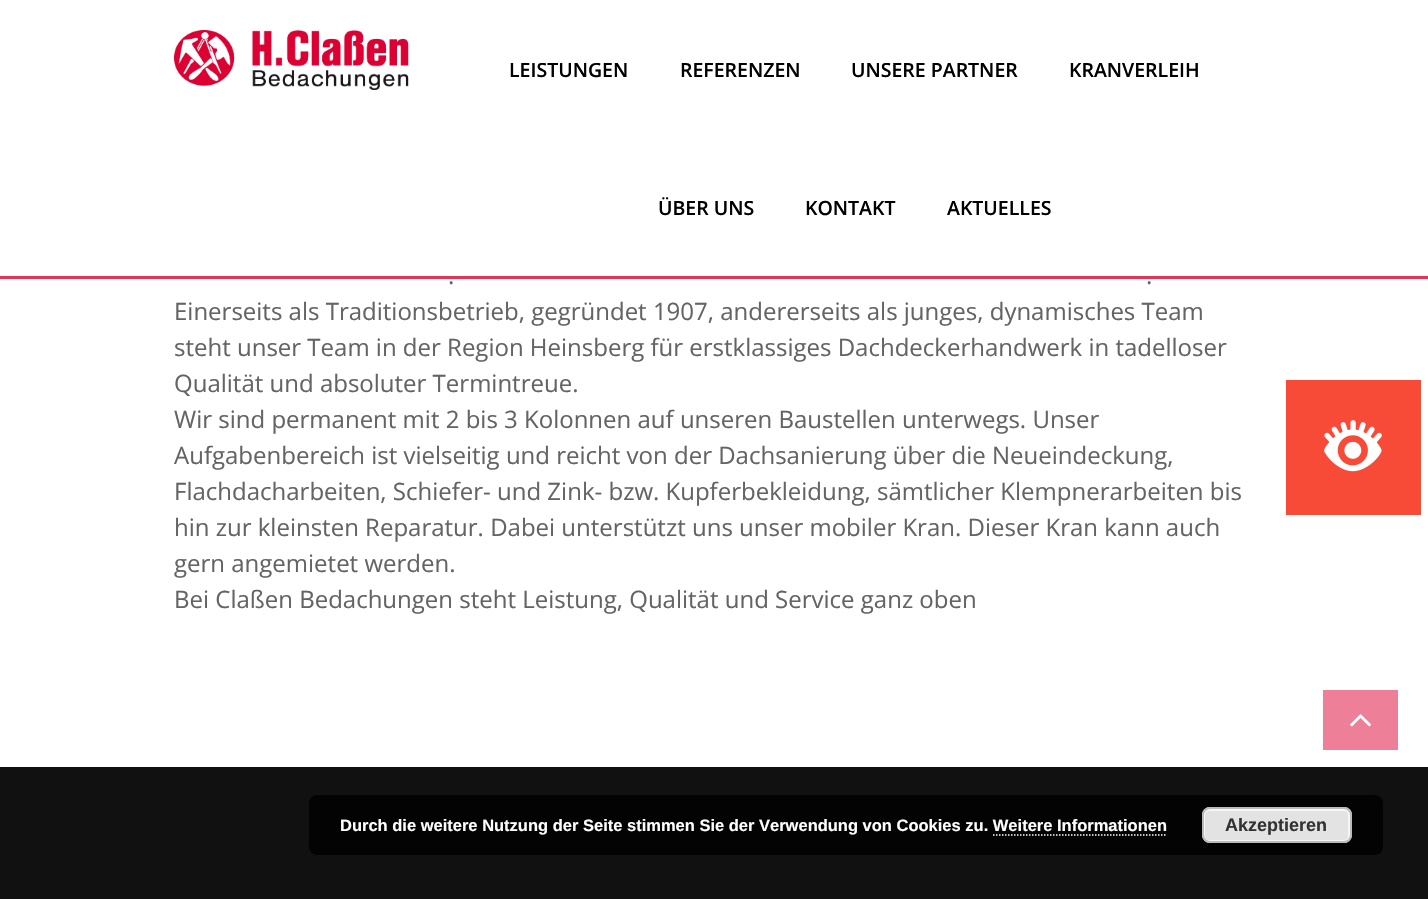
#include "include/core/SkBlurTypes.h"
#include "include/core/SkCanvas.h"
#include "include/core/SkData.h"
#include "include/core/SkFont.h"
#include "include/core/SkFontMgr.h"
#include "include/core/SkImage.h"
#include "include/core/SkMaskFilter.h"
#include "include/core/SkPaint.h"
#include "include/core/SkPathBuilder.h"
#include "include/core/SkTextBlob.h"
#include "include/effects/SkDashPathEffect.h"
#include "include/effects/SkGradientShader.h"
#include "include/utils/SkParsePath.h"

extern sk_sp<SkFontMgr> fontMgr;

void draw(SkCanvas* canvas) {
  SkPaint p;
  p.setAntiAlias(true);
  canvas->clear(SK_ColorWHITE);
  p.setColor(SkColorSetARGB(204, 219, 0, 49));
  canvas->drawRect(SkRect::MakeLTRB(0, 276, 1428, 279), p);
  canvas->drawImageRect(SkImages::DeferredFromEncodedData(SkData::MakeFromFileName("images/1.png")), SkRect::MakeLTRB(174, 30, 409, 90), SkSamplingOptions());
  p.setColor(SkColorSetRGB(247, 75, 56));
  canvas->drawRect(SkRect::MakeLTRB(1286, 380, 1421, 515), p);
  canvas->drawImageRect(SkImages::DeferredFromEncodedData(SkData::MakeFromFileName("images/2.png")), SkRect::MakeLTRB(1324, 420, 1382, 472), SkSamplingOptions());
  p.setColor(SkColorSetRGB(17, 17, 17));
  canvas->drawRect(SkRect::MakeLTRB(0, 767, 1428, 899), p);
  p.setColor(SkColorSetRGB(3, 3, 3));
  canvas->drawRoundRect(SkRect::MakeLTRB(309, 795, 1383, 855), 8, 8, p);
  p.setColor(SkColorSetRGB(227, 227, 227));
  canvas->drawRoundRect(SkRect::MakeLTRB(1202, 807, 1352, 843), 8, 8, p);
  p.setStyle(SkPaint::kStroke_Style);
  p.setStrokeWidth(2);
  p.setColor(SkColorSetRGB(246, 246, 246));
  canvas->drawRoundRect(SkRect::MakeLTRB(1204, 810, 1349, 841), 5, 5, p);
  p.setColor(SkColorSetRGB(187, 187, 187));
  canvas->drawRoundRect(SkRect::MakeLTRB(1203, 808, 1351, 842), 7, 7, p);
  p.setStrokeWidth(1.5f);
  p.setColor(SK_ColorWHITE);
  p.setPathEffect(SkDashPathEffect::Make({{1.5f, 1.5f}}, 0));
  canvas->drawPath(SkPathBuilder().moveTo(993, 835).lineTo(1167, 835).detach(), p);
  p.setPathEffect(nullptr);
  p.setStyle(SkPaint::kFill_Style);
  p.setColor(SkColorSetRGB(237, 128, 152));
  canvas->drawRect(SkRect::MakeLTRB(1323, 690, 1398, 750), p);
  canvas->drawImageRect(SkImages::DeferredFromEncodedData(SkData::MakeFromFileName("images/3.png")), SkRect::MakeLTRB(1350, 714, 1371, 727), SkSamplingOptions());
  SkFont font1(fontMgr->matchFamilyStyle("Open Sans", SkFontStyle(600, SkFontStyle::kNormal_Width, SkFontStyle::kUpright_Slant)), 19.5f);
  font1.setSubpixel(true);
  p.setColor(SK_ColorBLACK);
  canvas->drawString("LEISTUNGEN", 509, 77, font1, p);
  canvas->drawString("REFERENZEN", 680, 77, font1, p);
  canvas->drawString("UNSERE PARTNER", 851, 77, font1, p);
  canvas->drawString("KRANVERLEIH", 1069, 77, font1, p);
  canvas->drawString("ÜBER UNS", 658, 215, font1, p);
  canvas->drawString("KONTAKT", 805, 215, font1, p);
  canvas->drawString("AKTUELLES", 947, 215, font1, p);
  SkFont font2(fontMgr->matchFamilyStyle("Open Sans", SkFontStyle::Normal()), 24);
  font2.setSubpixel(true);
  p.setColor(SkColorSetRGB(100, 100, 100));
  canvas->drawString(".", 448, 284, font2, p);
  canvas->drawString(".", 1146, 284, font2, p);
  canvas->drawString("Einerseits als Traditionsbetrieb, gegründet 1907, andererseits als junges, dynamisches Team", 174, 320, font2, p);
  canvas->drawString("steht unser Team in der Region Heinsberg für erstklassiges Dachdeckerhandwerk in tadelloser", 174, 356, font2, p);
  canvas->drawString("Qualität und absoluter Termintreue.", 174, 392, font2, p);
  canvas->drawString("Wir sind permanent mit 2 bis 3 Kolonnen auf unseren Baustellen unterwegs. Unser", 174, 428, font2, p);
  canvas->drawString("Aufgabenbereich ist vielseitig und reicht von der Dachsanierung über die Neueindeckung,", 174, 464, font2, p);
  canvas->drawString("Flachdacharbeiten, Schiefer- und Zink- bzw. Kupferbekleidung, sämtlicher Klempnerarbeiten bis", 174, 500, font2, p);
  canvas->drawString("hin zur kleinsten Reparatur. Dabei unterstützt uns unser mobiler Kran. Dieser Kran kann auch", 174, 536, font2, p);
  canvas->drawString("gern angemietet werden.", 174, 572, font2, p);
  canvas->drawString("Bei Claßen Bedachungen steht Leistung, Qualität und Service ganz oben", 174, 608, font2, p);
  SkFont font3(fontMgr->matchFamilyStyle("Liberation Sans", SkFontStyle::Bold()), 16.5f);
  font3.setSubpixel(true);
  p.setColor(SK_ColorWHITE);
  canvas->drawString("Durch die weitere Nutzung der Seite stimmen Sie der Verwendung von Cookies zu. Weitere Informationen", 340, 831, font3, p);
  SkFont font4(fontMgr->matchFamilyStyle("Liberation Sans", SkFontStyle::Bold()), 18);
  font4.setSubpixel(true);
  p.setColor(SkColorSetRGB(51, 51, 51));
  canvas->drawString("Akzeptieren", 1225, 831, font4, p);
}
